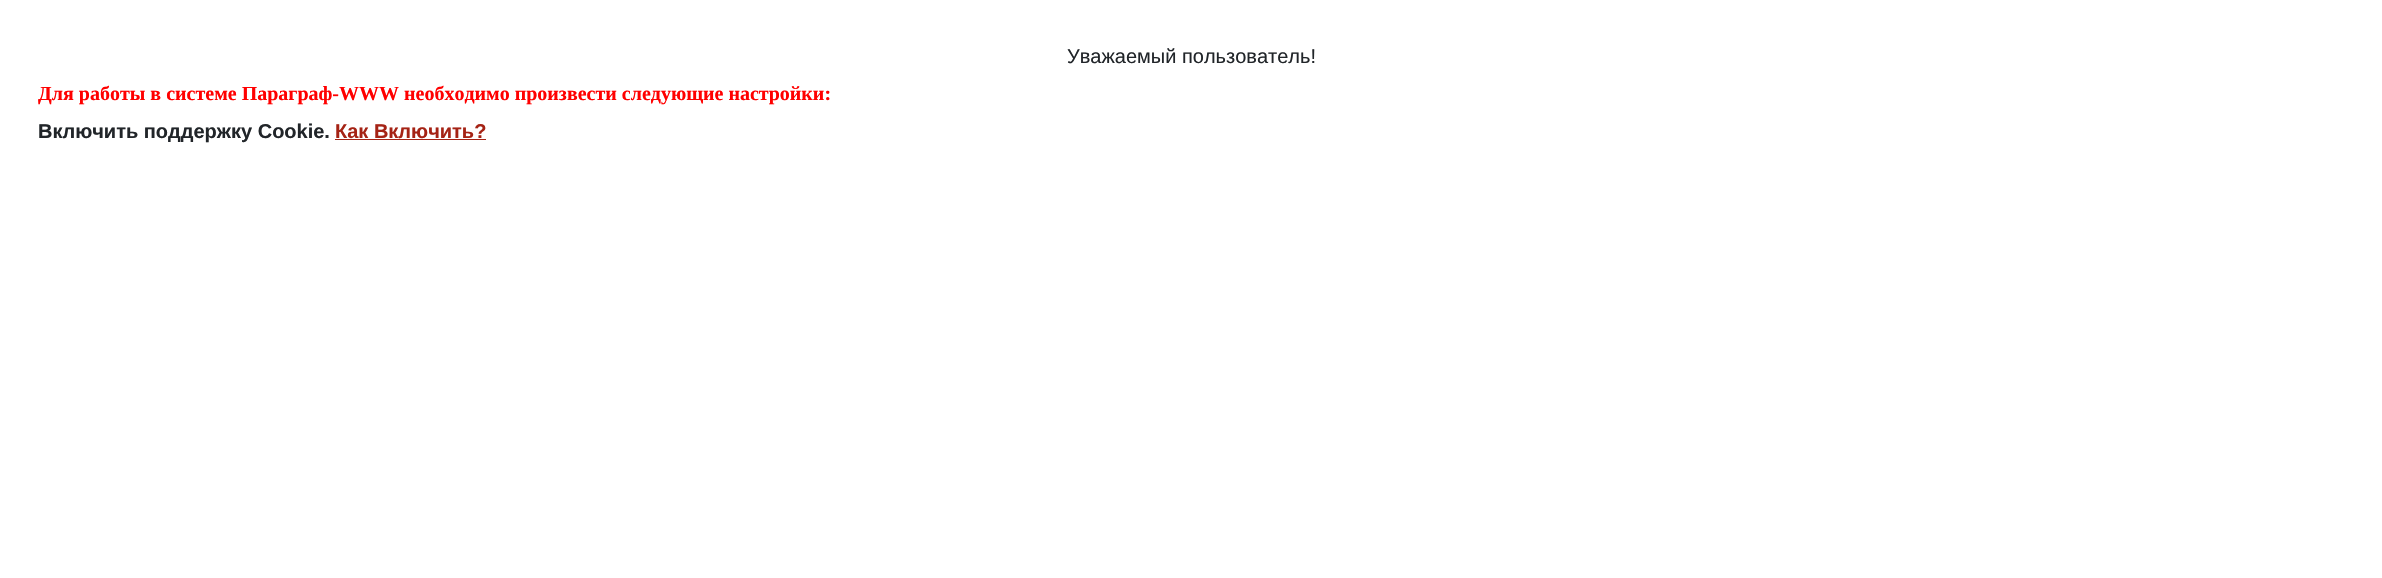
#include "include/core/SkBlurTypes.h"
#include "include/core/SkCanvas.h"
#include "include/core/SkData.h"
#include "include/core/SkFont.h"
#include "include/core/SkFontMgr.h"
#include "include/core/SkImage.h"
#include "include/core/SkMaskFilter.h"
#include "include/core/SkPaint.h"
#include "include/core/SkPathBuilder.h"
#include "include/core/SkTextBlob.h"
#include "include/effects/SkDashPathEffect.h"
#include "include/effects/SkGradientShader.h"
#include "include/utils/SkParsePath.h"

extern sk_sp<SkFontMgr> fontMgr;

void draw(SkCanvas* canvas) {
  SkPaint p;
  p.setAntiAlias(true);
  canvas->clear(SK_ColorWHITE);
  p.setColor(SkColorSetRGB(165, 35, 21));
  canvas->drawRect(SkRect::MakeLTRB(335, 139, 486, 140), p);
  SkFont font1(fontMgr->matchFamilyStyle("Liberation Sans", SkFontStyle::Normal()), 20);
  font1.setSubpixel(true);
  p.setColor(SkColorSetRGB(33, 37, 41));
  canvas->drawString("Уважаемый пользователь!", 1067, 63, font1, p);
  SkFont font2(fontMgr->matchFamilyStyle("Liberation Serif", SkFontStyle::Bold()), 20);
  font2.setSubpixel(true);
  p.setColor(SkColorSetRGB(255, 0, 0));
  canvas->drawString("Для работы в системе Параграф-WWW необходимо произвести следующие настройки:", 38, 100, font2, p);
  SkFont font3(fontMgr->matchFamilyStyle("Liberation Sans", SkFontStyle::Bold()), 20);
  font3.setSubpixel(true);
  p.setColor(SkColorSetRGB(33, 37, 41));
  canvas->drawString("Включить поддержку Cookie.", 38, 138, font3, p);
  p.setColor(SkColorSetRGB(165, 35, 21));
  canvas->drawString("Как Включить?", 335, 138, font3, p);
}
